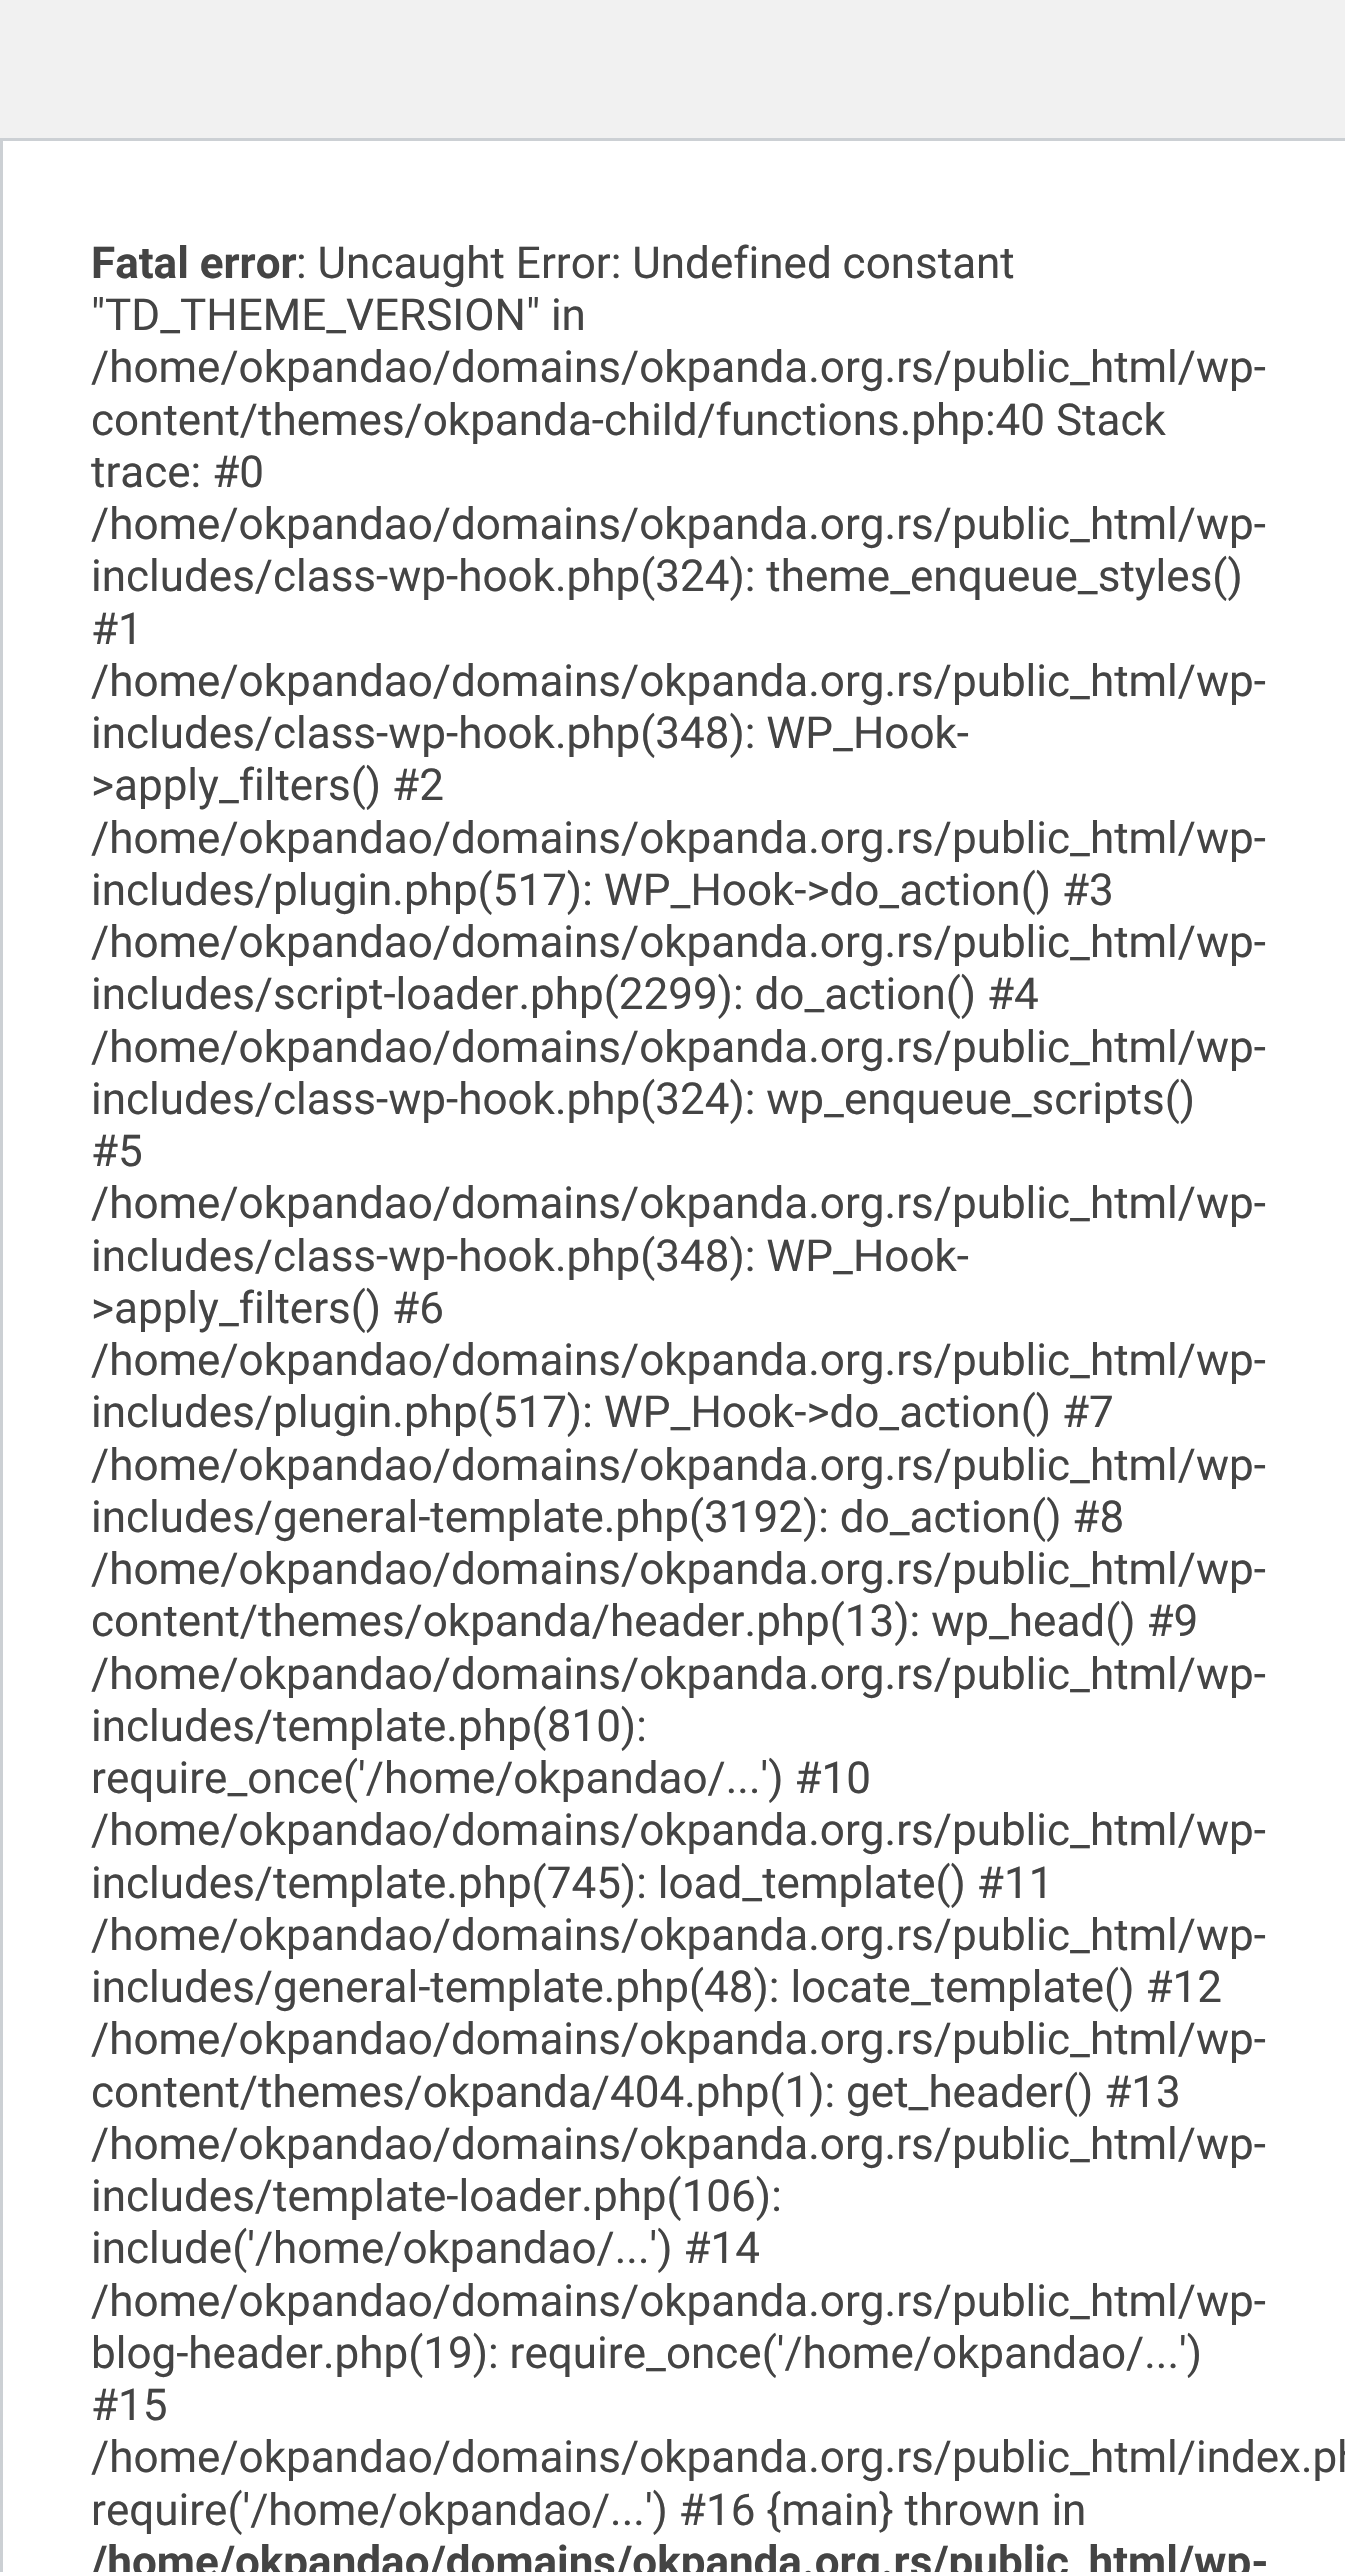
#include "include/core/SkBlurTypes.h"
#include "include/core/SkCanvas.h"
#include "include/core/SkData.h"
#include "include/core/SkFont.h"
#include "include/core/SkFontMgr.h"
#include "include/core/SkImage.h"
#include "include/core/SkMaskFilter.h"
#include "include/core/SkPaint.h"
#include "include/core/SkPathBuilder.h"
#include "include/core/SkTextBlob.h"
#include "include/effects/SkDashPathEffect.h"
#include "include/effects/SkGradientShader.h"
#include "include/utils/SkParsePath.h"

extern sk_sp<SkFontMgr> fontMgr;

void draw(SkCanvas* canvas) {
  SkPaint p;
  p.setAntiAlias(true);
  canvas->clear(SkColorSetRGB(241, 241, 241));
  p.setColor(SK_ColorWHITE);
  canvas->drawRect(SkRect::MakeLTRB(1.5f, 139.5f, 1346.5f, 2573.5f), p);
  p.setStyle(SkPaint::kStroke_Style);
  p.setStrokeWidth(3);
  p.setColor(SkColorSetRGB(204, 208, 212));
  canvas->drawRect(SkRect::MakeLTRB(1.5f, 139.5f, 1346.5f, 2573.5f), p);
  SkFont font1(fontMgr->matchFamilyStyle("Roboto", SkFontStyle::Bold()), 44);
  font1.setSubpixel(true);
  p.setStyle(SkPaint::kFill_Style);
  p.setColor(SkColorSetRGB(68, 68, 68));
  canvas->drawString("Fatal error", 91, 278, font1, p);
  SkFont font2(fontMgr->matchFamilyStyle("Roboto", SkFontStyle::Normal()), 44);
  font2.setSubpixel(true);
  canvas->drawString(": Uncaught Error: Undefined constant", 296, 278, font2, p);
  canvas->drawString("\"TD_THEME_VERSION\" in", 91, 330, font2, p);
  canvas->drawString("/home/okpandao/domains/okpanda.org.rs/public_html/wp-", 91, 382, font2, p);
  canvas->drawString("content/themes/okpanda-child/functions.php:40 Stack", 91, 435, font2, p);
  canvas->drawString("trace: #0", 91, 487, font2, p);
  canvas->drawString("/home/okpandao/domains/okpanda.org.rs/public_html/wp-", 91, 539, font2, p);
  canvas->drawString("includes/class-wp-hook.php(324): theme_enqueue_styles()", 91, 591, font2, p);
  canvas->drawString("#1", 91, 644, font2, p);
  canvas->drawString("/home/okpandao/domains/okpanda.org.rs/public_html/wp-", 91, 696, font2, p);
  canvas->drawString("includes/class-wp-hook.php(348): WP_Hook-", 91, 748, font2, p);
  canvas->drawString(">apply_filters() #2", 91, 800, font2, p);
  canvas->drawString("/home/okpandao/domains/okpanda.org.rs/public_html/wp-", 91, 853, font2, p);
  canvas->drawString("includes/plugin.php(517): WP_Hook->do_action() #3", 91, 905, font2, p);
  canvas->drawString("/home/okpandao/domains/okpanda.org.rs/public_html/wp-", 91, 957, font2, p);
  canvas->drawString("includes/script-loader.php(2299): do_action() #4", 91, 1009, font2, p);
  canvas->drawString("/home/okpandao/domains/okpanda.org.rs/public_html/wp-", 91, 1062, font2, p);
  canvas->drawString("includes/class-wp-hook.php(324): wp_enqueue_scripts()", 91, 1114, font2, p);
  canvas->drawString("#5", 91, 1166, font2, p);
  canvas->drawString("/home/okpandao/domains/okpanda.org.rs/public_html/wp-", 91, 1218, font2, p);
  canvas->drawString("includes/class-wp-hook.php(348): WP_Hook-", 91, 1271, font2, p);
  canvas->drawString(">apply_filters() #6", 91, 1323, font2, p);
  canvas->drawString("/home/okpandao/domains/okpanda.org.rs/public_html/wp-", 91, 1375, font2, p);
  canvas->drawString("includes/plugin.php(517): WP_Hook->do_action() #7", 91, 1427, font2, p);
  canvas->drawString("/home/okpandao/domains/okpanda.org.rs/public_html/wp-", 91, 1480, font2, p);
  canvas->drawString("includes/general-template.php(3192): do_action() #8", 91, 1532, font2, p);
  canvas->drawString("/home/okpandao/domains/okpanda.org.rs/public_html/wp-", 91, 1584, font2, p);
  canvas->drawString("content/themes/okpanda/header.php(13): wp_head() #9", 91, 1636, font2, p);
  canvas->drawString("/home/okpandao/domains/okpanda.org.rs/public_html/wp-", 91, 1689, font2, p);
  canvas->drawString("includes/template.php(810):", 91, 1741, font2, p);
  canvas->drawString("require_once('/home/okpandao/...') #10", 91, 1793, font2, p);
  canvas->drawString("/home/okpandao/domains/okpanda.org.rs/public_html/wp-", 91, 1845, font2, p);
  canvas->drawString("includes/template.php(745): load_template() #11", 91, 1898, font2, p);
  canvas->drawString("/home/okpandao/domains/okpanda.org.rs/public_html/wp-", 91, 1950, font2, p);
  canvas->drawString("includes/general-template.php(48): locate_template() #12", 91, 2002, font2, p);
  canvas->drawString("/home/okpandao/domains/okpanda.org.rs/public_html/wp-", 91, 2054, font2, p);
  canvas->drawString("content/themes/okpanda/404.php(1): get_header() #13", 91, 2107, font2, p);
  canvas->drawString("/home/okpandao/domains/okpanda.org.rs/public_html/wp-", 91, 2159, font2, p);
  canvas->drawString("includes/template-loader.php(106):", 91, 2211, font2, p);
  canvas->drawString("include('/home/okpandao/...') #14", 91, 2263, font2, p);
  canvas->drawString("/home/okpandao/domains/okpanda.org.rs/public_html/wp-", 91, 2316, font2, p);
  canvas->drawString("blog-header.php(19): require_once('/home/okpandao/...')", 91, 2368, font2, p);
  canvas->drawString("#15", 91, 2420, font2, p);
  canvas->drawString("/home/okpandao/domains/okpanda.org.rs/public_html/index.ph", 91, 2472, font2, p);
  canvas->drawString("require('/home/okpandao/...') #16 {main} thrown in", 91, 2525, font2, p);
  canvas->drawString("/home/okpandao/domains/okpanda.org.rs/public_html/wp-", 91, 2577, font1, p);
}
